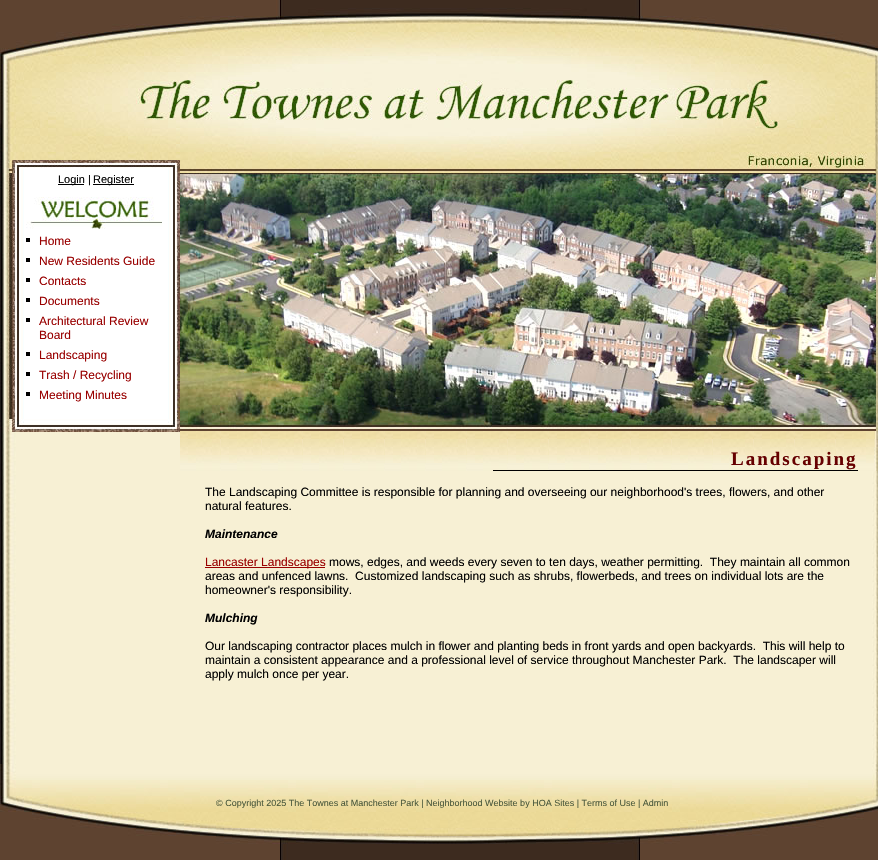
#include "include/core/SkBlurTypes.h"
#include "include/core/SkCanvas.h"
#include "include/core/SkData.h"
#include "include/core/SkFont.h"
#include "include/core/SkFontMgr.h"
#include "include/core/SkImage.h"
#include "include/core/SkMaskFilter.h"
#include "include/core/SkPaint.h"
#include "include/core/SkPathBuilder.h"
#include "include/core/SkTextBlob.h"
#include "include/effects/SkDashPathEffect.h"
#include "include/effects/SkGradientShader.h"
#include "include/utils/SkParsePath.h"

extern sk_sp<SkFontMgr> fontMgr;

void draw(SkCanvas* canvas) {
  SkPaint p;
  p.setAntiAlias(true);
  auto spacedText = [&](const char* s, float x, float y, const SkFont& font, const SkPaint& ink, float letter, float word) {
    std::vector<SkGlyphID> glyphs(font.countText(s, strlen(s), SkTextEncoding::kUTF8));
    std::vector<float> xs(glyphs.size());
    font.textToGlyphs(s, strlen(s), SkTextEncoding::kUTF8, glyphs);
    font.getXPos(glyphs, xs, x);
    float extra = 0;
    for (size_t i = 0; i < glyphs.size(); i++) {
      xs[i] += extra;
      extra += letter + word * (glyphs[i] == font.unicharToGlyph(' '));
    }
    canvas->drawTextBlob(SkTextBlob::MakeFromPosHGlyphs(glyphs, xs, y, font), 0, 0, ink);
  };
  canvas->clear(SK_ColorWHITE);
  canvas->drawImageRect(SkImages::DeferredFromEncodedData(SkData::MakeFromFileName("images/1.png")), SkRect::MakeLTRB(0, 432, 878, 764), SkSamplingOptions());
  canvas->drawImageRect(SkImages::DeferredFromEncodedData(SkData::MakeFromFileName("images/2.png")), SkRect::MakeLTRB(0, 0, 180, 173), SkSamplingOptions());
  canvas->drawImageRect(SkImages::DeferredFromEncodedData(SkData::MakeFromFileName("images/3.png")), SkRect::MakeLTRB(0, 173, 180, 419), SkSamplingOptions());
  p.setColor(SK_ColorBLACK);
  canvas->drawRect(SkRect::MakeLTRB(58, 184, 84, 185), p);
  canvas->drawRect(SkRect::MakeLTRB(93, 184, 134, 185), p);
  canvas->drawImageRect(SkImages::DeferredFromEncodedData(SkData::MakeFromFileName("images/4.png")), SkRect::MakeLTRB(26, 197, 162, 229), SkSamplingOptions());
  canvas->drawRect(SkRect::MakeLTRB(26, 238, 30, 242), p);
  canvas->drawRect(SkRect::MakeLTRB(26, 258, 30, 262), p);
  canvas->drawRect(SkRect::MakeLTRB(26, 278, 30, 282), p);
  canvas->drawRect(SkRect::MakeLTRB(26, 298, 30, 302), p);
  canvas->drawRect(SkRect::MakeLTRB(26, 318, 30, 322), p);
  canvas->drawRect(SkRect::MakeLTRB(26, 352, 30, 356), p);
  canvas->drawRect(SkRect::MakeLTRB(26, 372, 30, 376), p);
  canvas->drawRect(SkRect::MakeLTRB(26, 392, 30, 396), p);
  canvas->drawImageRect(SkImages::DeferredFromEncodedData(SkData::MakeFromFileName("images/5.png")), SkRect::MakeLTRB(0, 419, 180, 432), SkSamplingOptions());
  canvas->drawImageRect(SkImages::DeferredFromEncodedData(SkData::MakeFromFileName("images/6.png")), SkRect::MakeLTRB(180, 0, 451, 173), SkSamplingOptions());
  canvas->drawImageRect(SkImages::DeferredFromEncodedData(SkData::MakeFromFileName("images/7.png")), SkRect::MakeLTRB(451, 0, 878, 173), SkSamplingOptions());
  canvas->drawImageRect(SkImages::DeferredFromEncodedData(SkData::MakeFromFileName("images/8.png")), SkRect::MakeLTRB(180, 173, 878, 431), SkSamplingOptions());
  canvas->drawImageRect(SkImages::DeferredFromEncodedData(SkData::MakeFromFileName("images/9.png")), SkRect::MakeLTRB(180, 431, 866, 471), SkSamplingOptions());
  canvas->drawRect(SkRect::MakeLTRB(493, 470, 858, 471), p);
  canvas->drawImageRect(SkImages::DeferredFromEncodedData(SkData::MakeFromFileName("images/10.png")), SkRect::MakeLTRB(866, 431, 878, 471), SkSamplingOptions());
  p.setColor(SkColorSetRGB(153, 0, 0));
  canvas->drawRect(SkRect::MakeLTRB(205, 567, 325, 568), p);
  canvas->drawImageRect(SkImages::DeferredFromEncodedData(SkData::MakeFromFileName("images/11.png")), SkRect::MakeLTRB(0, 764, 878, 860), SkSamplingOptions());
  SkFont font1(fontMgr->matchFamilyStyle("Liberation Sans", SkFontStyle::Normal()), 11);
  font1.setSubpixel(true);
  p.setColor(SK_ColorBLACK);
  canvas->drawString("Login |", 58, 183, font1, p);
  canvas->drawString("Register", 93, 183, font1, p);
  SkFont font2(fontMgr->matchFamilyStyle("Liberation Sans", SkFontStyle::Normal()), 12);
  font2.setSubpixel(true);
  p.setColor(SkColorSetRGB(153, 0, 0));
  canvas->drawString("Home", 39, 245, font2, p);
  canvas->drawString("New Residents Guide", 39, 265, font2, p);
  canvas->drawString("Contacts", 39, 285, font2, p);
  canvas->drawString("Documents", 39, 305, font2, p);
  canvas->drawString("Architectural Review", 39, 325, font2, p);
  canvas->drawString("Board", 39, 339, font2, p);
  canvas->drawString("Landscaping", 39, 359, font2, p);
  canvas->drawString("Trash / Recycling", 39, 379, font2, p);
  canvas->drawString("Meeting Minutes", 39, 399, font2, p);
  SkFont font3(fontMgr->matchFamilyStyle("Liberation Serif", SkFontStyle::Bold()), 19);
  font3.setSubpixel(true);
  p.setColor(SkColorSetRGB(102, 0, 0));
  spacedText("Landscaping", 731, 465, font3, p, 2, 0);
  p.setColor(SK_ColorBLACK);
  canvas->drawString("The Landscaping Committee is responsible for planning and overseeing our neighborhood's trees, flowers, and other", 205, 496, font2, p);
  canvas->drawString("natural features.", 205, 510, font2, p);
  SkFont font4(fontMgr->matchFamilyStyle("Liberation Sans", SkFontStyle::BoldItalic()), 12);
  font4.setSubpixel(true);
  canvas->drawString("Maintenance", 205, 538, font4, p);
  p.setColor(SkColorSetRGB(153, 0, 0));
  canvas->drawString("Lancaster Landscapes", 205, 566, font2, p);
  p.setColor(SK_ColorBLACK);
  canvas->drawString("mows, edges, and weeds every seven to ten days, weather permitting.  They maintain all common", 329, 566, font2, p);
  canvas->drawString("areas and unfenced lawns.  Customized landscaping such as shrubs, flowerbeds, and trees on individual lots are the", 205, 580, font2, p);
  canvas->drawString("homeowner's responsibility.", 205, 594, font2, p);
  canvas->drawString("Mulching", 205, 622, font4, p);
  canvas->drawString("Our landscaping contractor places mulch in flower and planting beds in front yards and open backyards.  This will help to", 205, 650, font2, p);
  canvas->drawString("maintain a consistent appearance and a professional level of service throughout Manchester Park.  The landscaper will", 205, 664, font2, p);
  canvas->drawString("apply mulch once per year.", 205, 678, font2, p);
  SkFont font5(fontMgr->matchFamilyStyle("Liberation Sans", SkFontStyle::Normal()), 9);
  font5.setSubpixel(true);
  p.setColor(SkColorSetRGB(75, 89, 60));
  canvas->drawString("© Copyright 2025 The Townes at Manchester Park | Neighborhood Website by HOA Sites | Terms of Use | Admin", 216, 806, font5, p);
}
